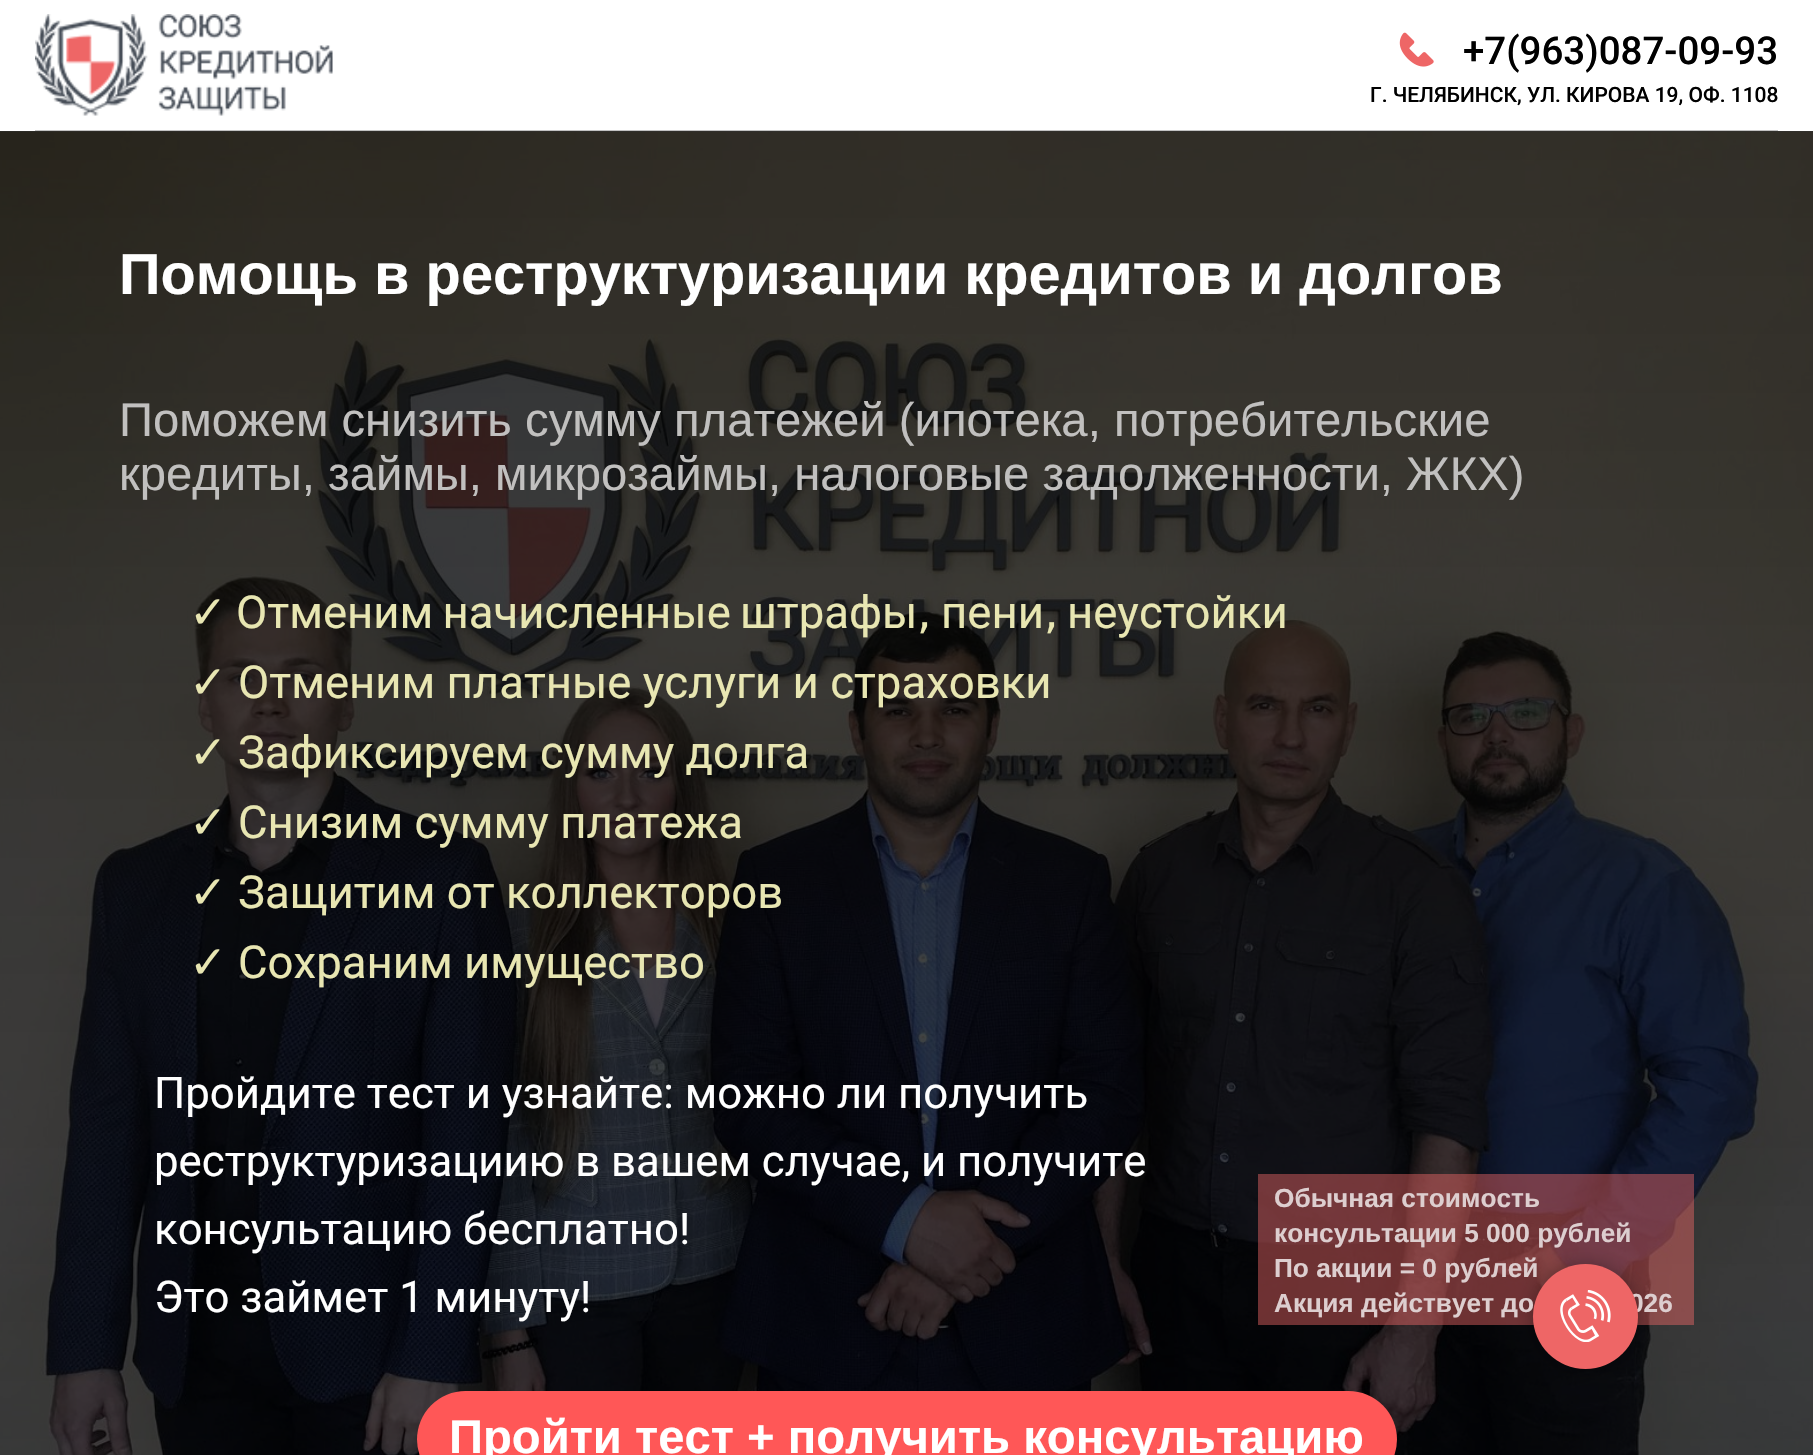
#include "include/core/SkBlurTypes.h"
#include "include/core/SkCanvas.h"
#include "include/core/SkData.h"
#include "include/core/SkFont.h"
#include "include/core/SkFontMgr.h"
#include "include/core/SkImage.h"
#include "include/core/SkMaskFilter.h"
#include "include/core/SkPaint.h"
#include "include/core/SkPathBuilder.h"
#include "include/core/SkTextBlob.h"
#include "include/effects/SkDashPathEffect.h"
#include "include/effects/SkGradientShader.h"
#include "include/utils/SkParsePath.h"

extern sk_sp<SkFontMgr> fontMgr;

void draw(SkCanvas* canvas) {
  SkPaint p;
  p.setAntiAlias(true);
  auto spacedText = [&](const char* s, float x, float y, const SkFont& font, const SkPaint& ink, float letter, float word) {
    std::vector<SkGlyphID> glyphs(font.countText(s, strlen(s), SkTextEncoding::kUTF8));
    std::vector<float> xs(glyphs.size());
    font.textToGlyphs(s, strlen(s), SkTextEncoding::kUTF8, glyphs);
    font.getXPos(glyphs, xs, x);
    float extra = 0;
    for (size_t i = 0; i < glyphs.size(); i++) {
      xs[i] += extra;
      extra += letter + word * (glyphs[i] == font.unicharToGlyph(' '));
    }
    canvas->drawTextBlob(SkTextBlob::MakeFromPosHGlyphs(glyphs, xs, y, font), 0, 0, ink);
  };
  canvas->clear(SK_ColorWHITE);
  canvas->drawImageRect(SkImages::DeferredFromEncodedData(SkData::MakeFromFileName("images/1.png")), SkRect::MakeLTRB(35, 14, 333, 116), SkSamplingOptions());
  canvas->drawImageRect(SkImages::DeferredFromEncodedData(SkData::MakeFromFileName("images/2.png")), SkRect::MakeLTRB(1399, 32, 1434, 67), SkSamplingOptions());
  p.setColor(SkColorSetRGB(194, 194, 194));
  canvas->drawRect(SkRect::MakeLTRB(35, 130, 1778, 131), p);
  canvas->drawImageRect(SkImages::DeferredFromEncodedData(SkData::MakeFromFileName("images/3.png")), SkRect::MakeLTRB(0, 131, 1813, 1455), SkSamplingOptions());
  {
    const SkColor colors[] = {SkColorSetARGB(204, 0, 0, 0), SkColorSetARGB(179, 0, 0, 0)};
    const float stops[] = {0, 1};
    const SkPoint ends[] = {{907, 131}, {907, 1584}};
    p.setShader(SkGradientShader::MakeLinear(ends, colors, stops, 2, SkTileMode::kClamp));
    p.setAlpha(255);
  }
  canvas->drawRect(SkRect::MakeLTRB(0, 131, 1813, 1455), p);
  p.setShader(nullptr);
  p.setColor(SkColorSetARGB(115, 238, 102, 102));
  canvas->drawRect(SkRect::MakeLTRB(1258, 1174, 1694, 1325), p);
  p.setColor(SkColorSetRGB(255, 87, 87));
  canvas->drawRoundRect(SkRect::MakeLTRB(417, 1391, 1397, 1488), 48.5f, 48.5f, p);
  p.setColor(SkColorSetARGB(77, 0, 0, 0));
  p.setMaskFilter(SkMaskFilter::MakeBlur(kNormal_SkBlurStyle, 9));
  canvas->drawRoundRect(SkRect::MakeLTRB(1533, 1264, 1638, 1369), 52.5f, 52.5f, p);
  p.setMaskFilter(nullptr);
  SkFont font1(fontMgr->matchFamilyStyle("Roboto", SkFontStyle(500, SkFontStyle::kNormal_Width, SkFontStyle::kUpright_Slant)), 38.5f);
  font1.setSubpixel(true);
  p.setColor(SK_ColorBLACK);
  canvas->drawString("+7(963)087-09-93", 1463, 64, font1, p);
  SkFont font2(fontMgr->matchFamilyStyle("Roboto", SkFontStyle(500, SkFontStyle::kNormal_Width, SkFontStyle::kUpright_Slant)), 21);
  font2.setSubpixel(true);
  canvas->drawString("Г. ЧЕЛЯБИНСК, УЛ. КИРОВА 19, ОФ. 1108", 1370, 102, font2, p);
  SkFont font3(fontMgr->matchFamilyStyle("Liberation Sans", SkFontStyle::Bold()), 57.75f);
  font3.setSubpixel(true);
  p.setColor(SK_ColorWHITE);
  canvas->drawString("Помощь в реструктуризации кредитов и долгов", 119, 294, font3, p);
  SkFont font4(fontMgr->matchFamilyStyle("Liberation Sans", SkFontStyle::Normal()), 47.25f);
  font4.setSubpixel(true);
  p.setColor(SkColorSetRGB(193, 192, 191));
  canvas->drawString("Поможем снизить сумму платежей (ипотека, потребительские", 119, 436, font4, p);
  canvas->drawString("кредиты, займы, микрозаймы, налоговые задолженности, ЖКХ)", 119, 490, font4, p);
  SkFont font5(fontMgr->matchFamilyStyle("DejaVu Sans", SkFontStyle::Normal()), 45.5f);
  font5.setSubpixel(true);
  p.setColor(SkColorSetRGB(232, 230, 178));
  canvas->drawString("✓", 189, 628, font5, p);
  SkFont font6(fontMgr->matchFamilyStyle("Roboto", SkFontStyle::Normal()), 45.5f);
  font6.setSubpixel(true);
  spacedText("Отменим начисленные штрафы", 236, 628, font6, p, 0, -2);
  canvas->drawString(",", 917, 628, font5, p);
  canvas->drawString("пени", 941, 628, font6, p);
  canvas->drawString(",", 1044, 628, font5, p);
  canvas->drawString("неустойки", 1067, 628, font6, p);
  canvas->drawString("✓", 189, 698, font5, p);
  canvas->drawString("Отменим платные услуги и страховки", 238, 698, font6, p);
  canvas->drawString("✓", 189, 768, font5, p);
  canvas->drawString("Зафиксируем сумму долга", 238, 768, font6, p);
  canvas->drawString("✓", 189, 838, font5, p);
  canvas->drawString("Снизим сумму платежа", 238, 838, font6, p);
  canvas->drawString("✓", 189, 908, font5, p);
  canvas->drawString("Защитим от коллекторов", 238, 908, font6, p);
  canvas->drawString("✓", 189, 978, font5, p);
  canvas->drawString("Сохраним имущество", 238, 978, font6, p);
  SkFont font7(fontMgr->matchFamilyStyle("Roboto", SkFontStyle::Normal()), 43.75f);
  font7.setSubpixel(true);
  p.setColor(SK_ColorWHITE);
  canvas->drawString("Пройдите тест и узнайте: можно ли получить", 154, 1108, font7, p);
  canvas->drawString("реструктуризациию в вашем случае, и получите", 154, 1176, font7, p);
  canvas->drawString("консультацию бесплатно!", 154, 1244, font7, p);
  canvas->drawString("Это займет 1 минуту!", 154, 1312, font7, p);
  SkFont font8(fontMgr->matchFamilyStyle("Liberation Sans", SkFontStyle::Bold()), 26.25f);
  font8.setSubpixel(true);
  p.setColor(SkColorSetRGB(221, 206, 207));
  canvas->drawString("Обычная стоимость", 1274, 1207, font8, p);
  canvas->drawString("консультации 5 000 рублей", 1274, 1242, font8, p);
  canvas->drawString("По акции = 0 рублей", 1274, 1277, font8, p);
  canvas->drawString("Акция действует до", 1274, 1312, font8, p);
  canvas->drawString("026", 1629, 1312, font8, p);
  SkFont font9(fontMgr->matchFamilyStyle("Liberation Sans", SkFontStyle::Bold()), 47.25f);
  font9.setSubpixel(true);
  p.setColor(SK_ColorWHITE);
  canvas->drawString("Пройти тест + получить консультацию", 449, 1453, font9, p);
  p.setColor(SkColorSetRGB(238, 102, 102));
  canvas->drawCircle(1585.5f, 1316.5f, 52.5f, p);
  canvas->drawImageRect(SkImages::DeferredFromEncodedData(SkData::MakeFromFileName("images/4.png")), SkRect::MakeLTRB(1560, 1290, 1611, 1342), SkSamplingOptions());
}
